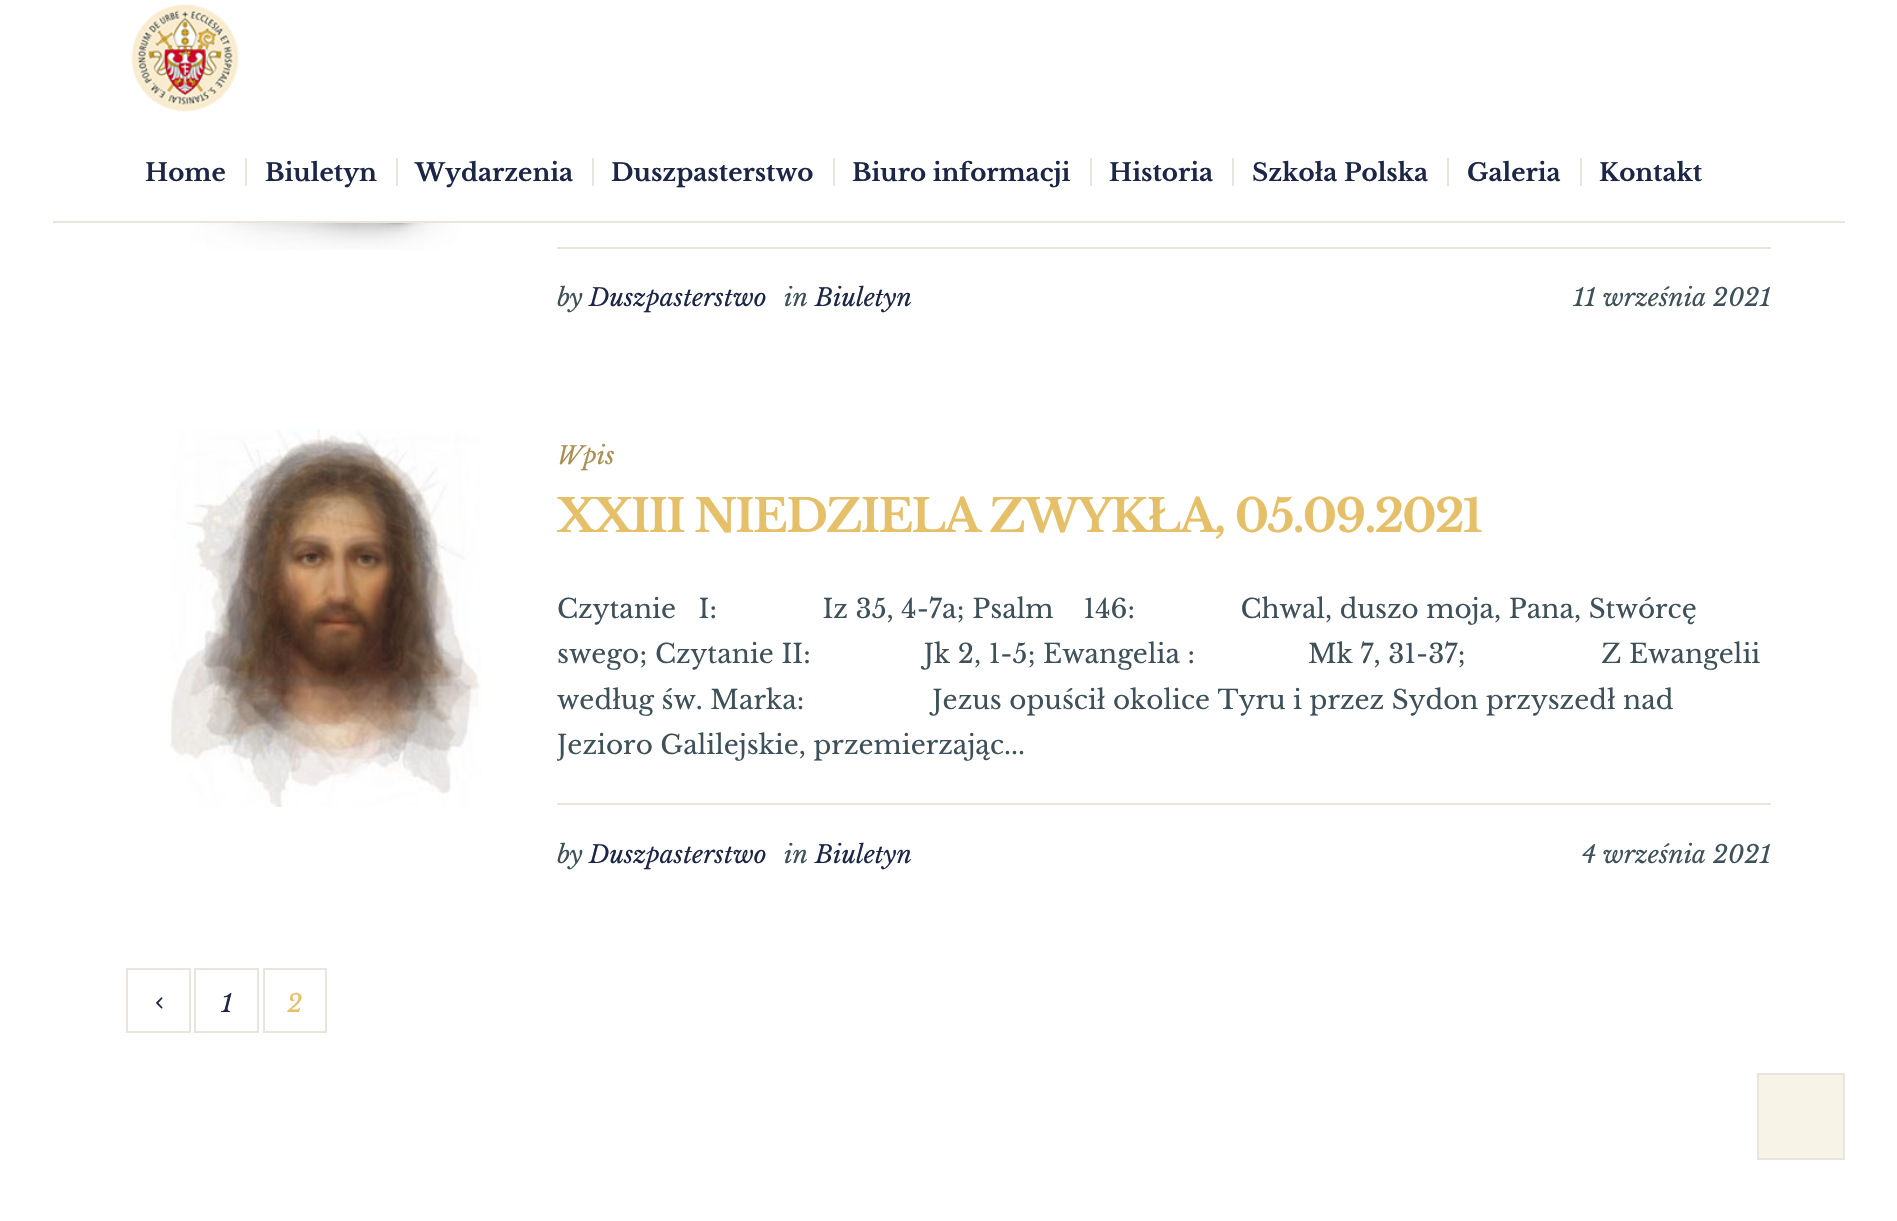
#include "include/core/SkBlurTypes.h"
#include "include/core/SkCanvas.h"
#include "include/core/SkData.h"
#include "include/core/SkFont.h"
#include "include/core/SkFontMgr.h"
#include "include/core/SkImage.h"
#include "include/core/SkMaskFilter.h"
#include "include/core/SkPaint.h"
#include "include/core/SkPathBuilder.h"
#include "include/core/SkTextBlob.h"
#include "include/effects/SkDashPathEffect.h"
#include "include/effects/SkGradientShader.h"
#include "include/utils/SkParsePath.h"

extern sk_sp<SkFontMgr> fontMgr;

void draw(SkCanvas* canvas) {
  SkPaint p;
  p.setAntiAlias(true);
  auto spacedText = [&](const char* s, float x, float y, const SkFont& font, const SkPaint& ink, float letter, float word) {
    std::vector<SkGlyphID> glyphs(font.countText(s, strlen(s), SkTextEncoding::kUTF8));
    std::vector<float> xs(glyphs.size());
    font.textToGlyphs(s, strlen(s), SkTextEncoding::kUTF8, glyphs);
    font.getXPos(glyphs, xs, x);
    float extra = 0;
    for (size_t i = 0; i < glyphs.size(); i++) {
      xs[i] += extra;
      extra += letter + word * (glyphs[i] == font.unicharToGlyph(' '));
    }
    canvas->drawTextBlob(SkTextBlob::MakeFromPosHGlyphs(glyphs, xs, y, font), 0, 0, ink);
  };
  canvas->clear(SK_ColorWHITE);
  canvas->drawImageRect(SkImages::DeferredFromEncodedData(SkData::MakeFromFileName("images/1.png")), SkRect::MakeLTRB(131, 4, 239, 112), SkSamplingOptions());
  p.setColor(SkColorSetRGB(233, 229, 222));
  canvas->drawRect(SkRect::MakeLTRB(53, 221, 1845, 223), p);
  canvas->drawRect(SkRect::MakeLTRB(245, 158, 247, 186), p);
  canvas->drawRect(SkRect::MakeLTRB(396, 158, 398, 186), p);
  canvas->drawRect(SkRect::MakeLTRB(592, 158, 594, 186), p);
  canvas->drawRect(SkRect::MakeLTRB(833, 158, 835, 186), p);
  canvas->drawRect(SkRect::MakeLTRB(1090, 158, 1092, 186), p);
  canvas->drawRect(SkRect::MakeLTRB(1232, 158, 1234, 186), p);
  canvas->drawRect(SkRect::MakeLTRB(1447, 158, 1449, 186), p);
  canvas->drawRect(SkRect::MakeLTRB(1580, 158, 1582, 186), p);
  canvas->drawImageRect(SkImages::DeferredFromEncodedData(SkData::MakeFromFileName("images/2.png")), SkRect::MakeLTRB(190, 223, 461, 250), SkSamplingOptions());
  canvas->drawRect(SkRect::MakeLTRB(557, 247, 1771, 249), p);
  canvas->drawImageRect(SkImages::DeferredFromEncodedData(SkData::MakeFromFileName("images/3.png")), SkRect::MakeLTRB(170, 429, 481, 807), SkSamplingOptions());
  canvas->drawRect(SkRect::MakeLTRB(557, 803, 1771, 805), p);
  p.setStyle(SkPaint::kStroke_Style);
  p.setStrokeWidth(2);
  canvas->drawRect(SkRect::MakeLTRB(127, 969, 190, 1032), p);
  canvas->drawImageRect(SkImages::DeferredFromEncodedData(SkData::MakeFromFileName("images/4.png")), SkRect::MakeLTRB(156, 997, 163, 1009), SkSamplingOptions());
  canvas->drawRect(SkRect::MakeLTRB(195, 969, 258, 1032), p);
  canvas->drawRect(SkRect::MakeLTRB(264, 969, 326, 1032), p);
  p.setStyle(SkPaint::kFill_Style);
  p.setColor(SkColorSetRGB(247, 243, 230));
  canvas->drawRect(SkRect::MakeLTRB(1758, 1074, 1844, 1159), p);
  p.setStyle(SkPaint::kStroke_Style);
  p.setColor(SkColorSetRGB(233, 229, 222));
  canvas->drawRect(SkRect::MakeLTRB(1758, 1074, 1844, 1159), p);
  SkFont font1(fontMgr->matchFamilyStyle("Libre Baskerville", SkFontStyle::Bold()), 24.5f);
  font1.setSubpixel(true);
  p.setStyle(SkPaint::kFill_Style);
  p.setColor(SkColorSetRGB(28, 38, 71));
  canvas->drawString("Home", 145, 181, font1, p);
  canvas->drawString("Biuletyn", 265, 181, font1, p);
  canvas->drawString("Wydarzenia", 415, 181, font1, p);
  canvas->drawString("Duszpasterstwo", 611, 181, font1, p);
  canvas->drawString("Biuro informacji", 852, 181, font1, p);
  canvas->drawString("Historia", 1109, 181, font1, p);
  canvas->drawString("Szkoła Polska", 1252, 181, font1, p);
  canvas->drawString("Galeria", 1467, 181, font1, p);
  canvas->drawString("Kontakt", 1599, 181, font1, p);
  SkFont font2(fontMgr->matchFamilyStyle("Libre Baskerville", SkFontStyle::Italic()), 24.5f);
  font2.setSubpixel(true);
  p.setColor(SkColorSetRGB(62, 80, 89));
  canvas->drawString("by", 557, 306, font2, p);
  p.setColor(SkColorSetRGB(28, 38, 71));
  canvas->drawString("Duszpasterstwo", 589, 306, font2, p);
  p.setColor(SkColorSetRGB(62, 80, 89));
  canvas->drawString("in", 784, 306, font2, p);
  p.setColor(SkColorSetRGB(28, 38, 71));
  canvas->drawString("Biuletyn", 815, 306, font2, p);
  p.setColor(SkColorSetRGB(62, 80, 89));
  canvas->drawString("11 września 2021", 1573, 306, font2, p);
  p.setColor(SkColorSetRGB(172, 144, 82));
  canvas->drawString("Wpis", 557, 464, font2, p);
  SkFont font3(fontMgr->matchFamilyStyle("Libre Baskerville", SkFontStyle::Bold()), 45.5f);
  font3.setSubpixel(true);
  p.setColor(SkColorSetRGB(230, 192, 104));
  spacedText("XXIII NIEDZIELA ZWYKŁA, 05.09.2021", 557, 532, font3, p, -1.75f, 0);
  SkFont font4(fontMgr->matchFamilyStyle("Libre Baskerville", SkFontStyle::Normal()), 26.25f);
  font4.setSubpixel(true);
  p.setColor(SkColorSetRGB(62, 80, 89));
  canvas->drawString("Czytanie   I:              Iz 35, 4-7a; Psalm    146:              Chwal, duszo moja, Pana, Stwórcę", 557, 618, font4, p);
  canvas->drawString("swego; Czytanie II:               Jk 2, 1-5; Ewangelia :               Mk 7, 31-37;                  Z Ewangelii", 557, 663, font4, p);
  canvas->drawString("według św. Marka:                 Jezus opuścił okolice Tyru i przez Sydon przyszedł nad", 557, 709, font4, p);
  canvas->save();
  canvas->clipRect(SkRect::MakeLTRB(557, 586, 1771, 768));
  canvas->drawString("Jezioro Galilejskie, przemierzając...", 557, 754, font4, p);
  canvas->restore();
  canvas->drawString("by", 557, 863, font2, p);
  p.setColor(SkColorSetRGB(28, 38, 71));
  canvas->drawString("Duszpasterstwo", 589, 863, font2, p);
  p.setColor(SkColorSetRGB(62, 80, 89));
  canvas->drawString("in", 784, 863, font2, p);
  p.setColor(SkColorSetRGB(28, 38, 71));
  canvas->drawString("Biuletyn", 815, 863, font2, p);
  p.setColor(SkColorSetRGB(62, 80, 89));
  canvas->drawString("4 września 2021", 1582, 863, font2, p);
  p.setColor(SkColorSetRGB(28, 38, 71));
  canvas->drawString("1", 221, 1012, font2, p);
  p.setColor(SkColorSetRGB(230, 192, 104));
  canvas->drawString("2", 287, 1012, font2, p);
}
